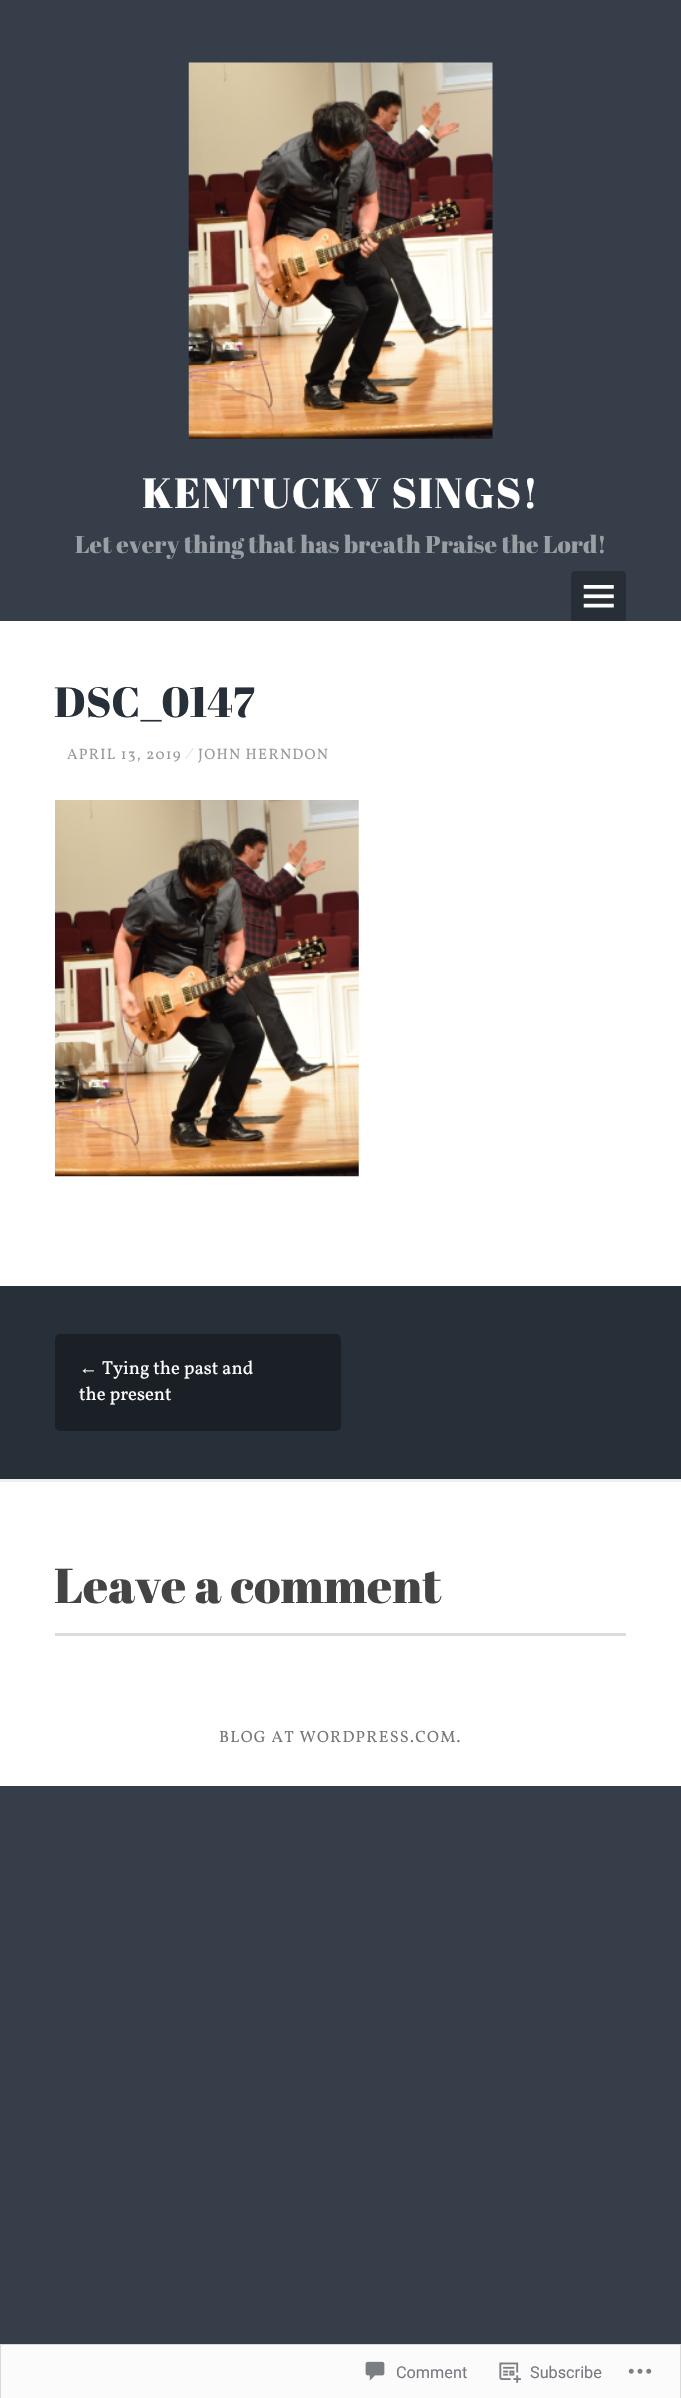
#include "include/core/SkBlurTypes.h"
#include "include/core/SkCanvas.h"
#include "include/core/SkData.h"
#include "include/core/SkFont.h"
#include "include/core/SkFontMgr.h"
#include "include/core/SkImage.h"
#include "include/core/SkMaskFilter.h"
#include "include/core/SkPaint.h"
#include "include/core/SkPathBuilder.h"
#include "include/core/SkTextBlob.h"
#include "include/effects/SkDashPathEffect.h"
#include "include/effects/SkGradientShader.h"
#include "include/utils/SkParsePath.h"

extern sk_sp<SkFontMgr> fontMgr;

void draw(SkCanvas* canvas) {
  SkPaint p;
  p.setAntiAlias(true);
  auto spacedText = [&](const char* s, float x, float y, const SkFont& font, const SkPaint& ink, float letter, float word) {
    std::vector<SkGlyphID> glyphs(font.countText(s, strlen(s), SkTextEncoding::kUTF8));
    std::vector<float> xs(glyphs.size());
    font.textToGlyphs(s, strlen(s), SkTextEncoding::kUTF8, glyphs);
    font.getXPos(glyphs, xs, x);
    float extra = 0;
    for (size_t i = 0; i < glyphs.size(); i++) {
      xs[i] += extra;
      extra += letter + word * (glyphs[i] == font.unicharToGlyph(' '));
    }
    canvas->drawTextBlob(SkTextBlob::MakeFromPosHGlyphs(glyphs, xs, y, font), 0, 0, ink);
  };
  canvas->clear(SkColorSetRGB(53, 62, 73));
  canvas->drawImageRect(SkImages::DeferredFromEncodedData(SkData::MakeFromFileName("images/1.png")), SkRect::MakeLTRB(188, 62, 493, 439), SkSamplingOptions());
  p.setColor(SkColorSetRGB(39, 46, 54));
  canvas->drawPath(SkPathBuilder().moveTo(575, 571).lineTo(622, 571).cubicTo(624, 571, 626, 573, 626, 575).lineTo(626, 621).lineTo(571, 621).lineTo(571, 575).cubicTo(571, 573, 573, 571, 575, 571).close().detach(), p);
  canvas->drawImageRect(SkImages::DeferredFromEncodedData(SkData::MakeFromFileName("images/2.png")), SkRect::MakeLTRB(583, 585, 614, 608), SkSamplingOptions());
  p.setColor(SK_ColorWHITE);
  canvas->drawRect(SkRect::MakeLTRB(0, 621, 681, 1786), p);
  canvas->drawImageRect(SkImages::DeferredFromEncodedData(SkData::MakeFromFileName("images/3.png")), SkRect::MakeLTRB(55, 800, 359, 1177), SkSamplingOptions());
  p.setColor(SkColorSetRGB(39, 47, 56));
  canvas->drawRect(SkRect::MakeLTRB(0, 1286, 681, 1479), p);
  p.setColor(SkColorSetRGB(27, 32, 39));
  canvas->drawRoundRect(SkRect::MakeLTRB(55, 1334, 341, 1431), 5, 5, p);
  p.setColor(SkColorSetRGB(238, 238, 238));
  canvas->drawRect(SkRect::MakeLTRB(0, 1479, 681, 1482), p);
  p.setColor(SkColorSetRGB(220, 220, 222));
  canvas->drawRect(SkRect::MakeLTRB(55, 1633, 626, 1636), p);
  p.setColor(SkColorSetRGB(251, 251, 251));
  canvas->drawRect(SkRect::MakeLTRB(0.5f, 2344.5f, 680.5f, 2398.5f), p);
  p.setStyle(SkPaint::kStroke_Style);
  p.setStrokeWidth(1);
  p.setColor(SkColorSetRGB(217, 217, 219));
  canvas->drawRect(SkRect::MakeLTRB(0.5f, 2344.5f, 680.5f, 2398.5f), p);
  canvas->drawImageRect(SkImages::DeferredFromEncodedData(SkData::MakeFromFileName("images/4.png")), SkRect::MakeLTRB(365, 2361, 385, 2381), SkSamplingOptions());
  canvas->drawImageRect(SkImages::DeferredFromEncodedData(SkData::MakeFromFileName("images/5.png")), SkRect::MakeLTRB(499, 2362, 521, 2383), SkSamplingOptions());
  canvas->drawImageRect(SkImages::DeferredFromEncodedData(SkData::MakeFromFileName("images/6.png")), SkRect::MakeLTRB(628, 2368, 652, 2374), SkSamplingOptions());
  SkFont font1(fontMgr->matchFamilyStyle("Abril Fatface", SkFontStyle::Normal()), 42.25f);
  font1.setSubpixel(true);
  p.setStyle(SkPaint::kFill_Style);
  p.setColor(SK_ColorWHITE);
  spacedText("KENTUCKY SINGS!", 142, 508, font1, p, 1.25f, 0);
  SkFont font2(fontMgr->matchFamilyStyle("Abril Fatface", SkFontStyle::Normal()), 24.4f);
  font2.setSubpixel(true);
  p.setColor(SkColorSetRGB(154, 159, 164));
  canvas->drawString("Let every thing that has breath Praise the Lord!", 75, 553, font2, p);
  p.setColor(SkColorSetRGB(39, 47, 56));
  canvas->drawString("DSC_0147", 54, 717, font1, p);
  SkFont font3(fontMgr->matchFamilyStyle("Vollkorn", SkFontStyle::Normal()), 15);
  font3.setSubpixel(true);
  p.setColor(SkColorSetRGB(153, 153, 153));
  spacedText("APRIL 13, 2019", 67, 759, font3, p, 1.25f, 0);
  p.setColor(SkColorSetRGB(221, 221, 221));
  spacedText("⁄", 188, 759, font3, p, 1.25f, 0);
  p.setColor(SkColorSetRGB(153, 153, 153));
  spacedText("JOHN HERNDON", 198, 759, font3, p, 1.25f, 0);
  SkFont font4(fontMgr->matchFamilyStyle("Liberation Serif", SkFontStyle::Normal()), 18.75f);
  font4.setSubpixel(true);
  p.setColor(SK_ColorWHITE);
  canvas->drawString("←", 79, 1374, font4, p);
  SkFont font5(fontMgr->matchFamilyStyle("Vollkorn", SkFontStyle::Normal()), 18.75f);
  font5.setSubpixel(true);
  canvas->drawString("Tying the past and", 102, 1374, font5, p);
  canvas->drawString("the present", 79, 1400, font5, p);
  SkFont font6(fontMgr->matchFamilyStyle("Abril Fatface", SkFontStyle::Normal()), 48.75f);
  font6.setSubpixel(true);
  p.setColor(SkColorSetRGB(68, 68, 68));
  canvas->drawString("Leave a comment", 54, 1603, font6, p);
  SkFont font7(fontMgr->matchFamilyStyle("Vollkorn", SkFontStyle::Normal()), 16.25f);
  font7.setSubpixel(true);
  p.setColor(SkColorSetRGB(119, 119, 119));
  spacedText("BLOG AT WORDPRESS.COM.", 219, 1742, font7, p, 1.25f, 0);
  SkFont font8(fontMgr->matchFamilyStyle("Roboto", SkFontStyle::Normal()), 16.25f);
  font8.setSubpixel(true);
  p.setColor(SkColorSetRGB(119, 123, 129));
  canvas->drawString("Comment", 396, 2378, font8, p);
  canvas->drawString("Subscribe", 530, 2378, font8, p);
}
